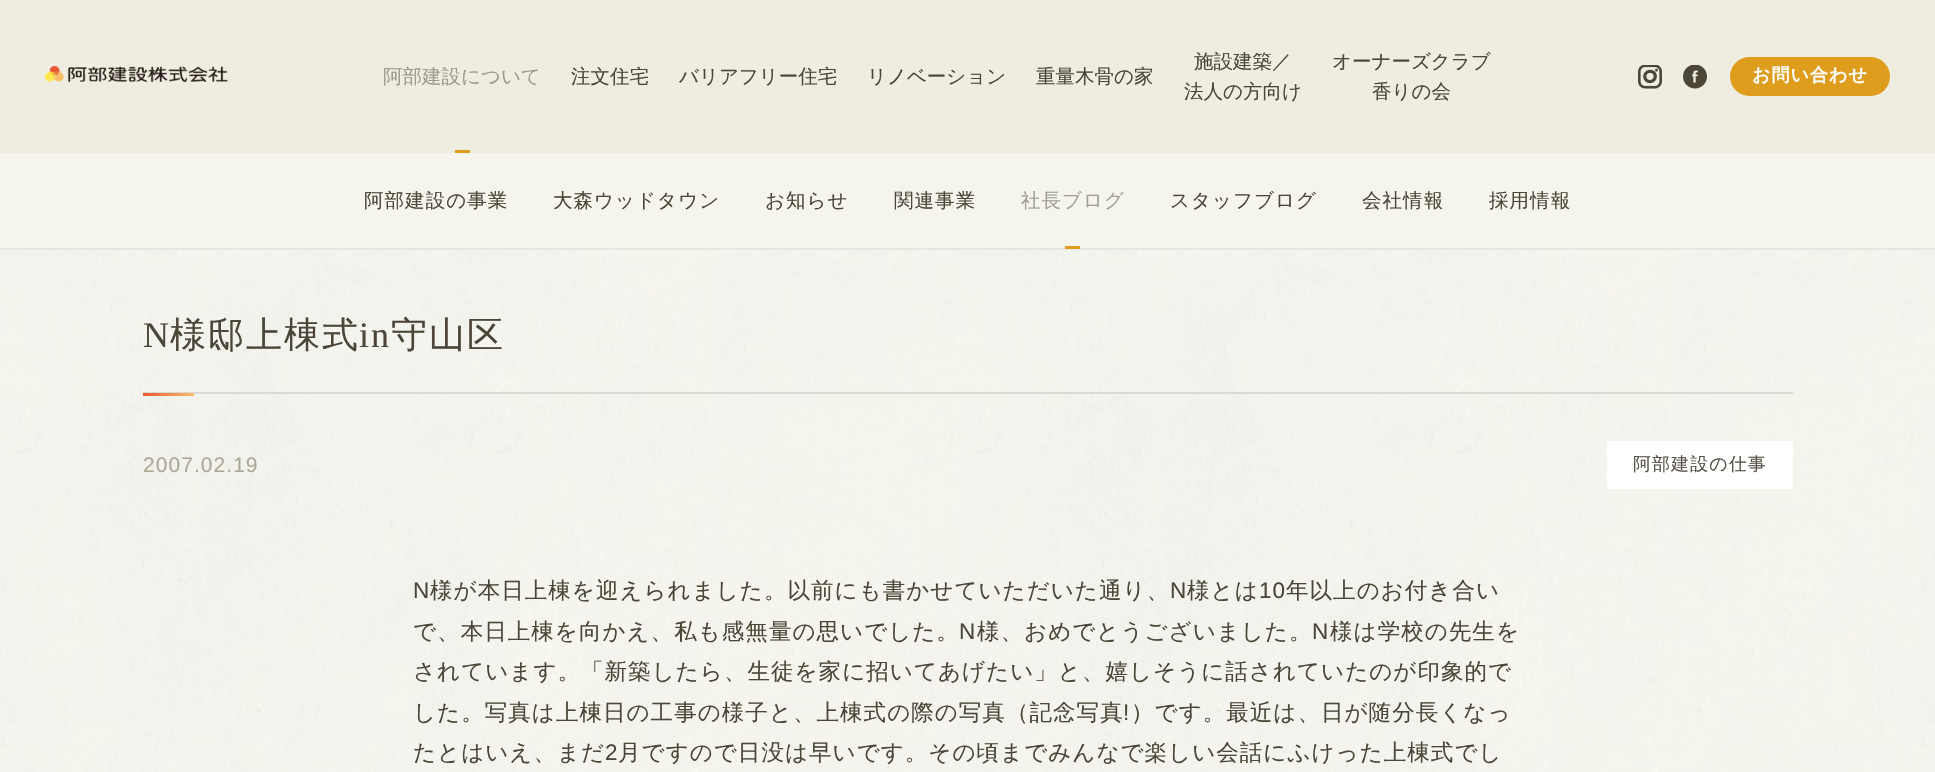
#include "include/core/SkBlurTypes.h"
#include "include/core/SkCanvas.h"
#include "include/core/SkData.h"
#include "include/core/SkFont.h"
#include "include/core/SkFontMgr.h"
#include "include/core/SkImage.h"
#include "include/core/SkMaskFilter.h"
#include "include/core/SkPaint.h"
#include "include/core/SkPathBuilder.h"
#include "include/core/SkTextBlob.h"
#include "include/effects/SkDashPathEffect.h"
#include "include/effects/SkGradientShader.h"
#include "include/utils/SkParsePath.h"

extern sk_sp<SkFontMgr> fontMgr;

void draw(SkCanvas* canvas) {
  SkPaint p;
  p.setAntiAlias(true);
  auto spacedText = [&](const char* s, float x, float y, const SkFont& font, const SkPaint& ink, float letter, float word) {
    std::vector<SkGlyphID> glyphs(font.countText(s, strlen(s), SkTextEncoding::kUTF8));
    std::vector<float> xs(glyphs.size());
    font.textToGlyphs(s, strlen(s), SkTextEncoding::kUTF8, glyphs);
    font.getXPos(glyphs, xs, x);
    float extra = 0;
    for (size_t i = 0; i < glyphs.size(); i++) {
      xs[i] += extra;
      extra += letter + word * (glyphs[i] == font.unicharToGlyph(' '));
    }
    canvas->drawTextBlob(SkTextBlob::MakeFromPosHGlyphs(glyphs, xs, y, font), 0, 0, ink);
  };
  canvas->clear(SK_ColorWHITE);
  p.setColor(SkColorSetRGB(238, 237, 223));
  canvas->drawRect(SkRect::MakeLTRB(0, 0, 1935, 153), p);
  canvas->drawImageRect(SkImages::DeferredFromEncodedData(SkData::MakeFromFileName("images/1.png")), SkRect::MakeLTRB(45, 65, 228, 82), SkSamplingOptions());
  p.setColor(SkColorSetRGB(223, 157, 30));
  canvas->drawRect(SkRect::MakeLTRB(455, 150, 470, 153), p);
  canvas->drawImageRect(SkImages::DeferredFromEncodedData(SkData::MakeFromFileName("images/2.png")), SkRect::MakeLTRB(1638, 65, 1662, 89), SkSamplingOptions());
  canvas->drawImageRect(SkImages::DeferredFromEncodedData(SkData::MakeFromFileName("images/3.png")), SkRect::MakeLTRB(1683, 65, 1707, 89), SkSamplingOptions());
  canvas->drawRoundRect(SkRect::MakeLTRB(1730, 57, 1890, 96), 19.5f, 19.5f, p);
  p.setColor(SkColorSetRGB(245, 245, 238));
  canvas->drawRect(SkRect::MakeLTRB(0, 153, 1935, 248), p);
  p.setColor(SkColorSetRGB(231, 230, 224));
  canvas->drawRect(SkRect::MakeLTRB(0, 248, 1935, 250), p);
  p.setColor(SkColorSetRGB(223, 157, 30));
  canvas->drawRect(SkRect::MakeLTRB(1065, 246, 1080, 249), p);
  canvas->drawImageRect(SkImages::DeferredFromEncodedData(SkData::MakeFromFileName("images/4.png")), SkRect::MakeLTRB(0, 250, 1935, 772), SkSamplingOptions());
  p.setColor(SkColorSetRGB(218, 218, 213));
  canvas->drawRect(SkRect::MakeLTRB(143, 392, 1793, 394), p);
  {
    const SkColor colors[] = {SkColorSetRGB(249, 190, 106), SkColorSetRGB(234, 85, 50)};
    const float stops[] = {0, 1};
    const SkPoint ends[] = {{194, 395}, {143, 395}};
    p.setShader(SkGradientShader::MakeLinear(ends, colors, stops, 2, SkTileMode::kClamp));
    p.setAlpha(255);
  }
  canvas->drawRect(SkRect::MakeLTRB(143, 393, 194, 396), p);
  p.setShader(nullptr);
  p.setColor(SK_ColorWHITE);
  canvas->drawRect(SkRect::MakeLTRB(1607, 441, 1793, 489), p);
  SkFont font1(fontMgr->matchFamilyStyle("WenQuanYi Zen Hei", SkFontStyle(500, SkFontStyle::kNormal_Width, SkFontStyle::kUpright_Slant)), 19.5f);
  font1.setSubpixel(true);
  p.setColor(SkColorSetRGB(157, 154, 139));
  canvas->drawString("阿部建設について", 383, 83, font1, p);
  p.setColor(SkColorSetRGB(75, 70, 55));
  canvas->drawString("注文住宅", 571, 83, font1, p);
  canvas->drawString("バリアフリー住宅", 679, 83, font1, p);
  canvas->drawString("リノベーション", 867, 83, font1, p);
  canvas->drawString("重量木骨の家", 1036, 83, font1, p);
  canvas->drawString("施設建築／", 1194, 68, font1, p);
  canvas->drawString("法人の方向け", 1184, 98, font1, p);
  canvas->drawString("オーナーズクラブ", 1332, 68, font1, p);
  canvas->drawString("香りの会", 1372, 98, font1, p);
  SkFont font2(fontMgr->matchFamilyStyle("WenQuanYi Zen Hei", SkFontStyle::Bold()), 18);
  font2.setSubpixel(true);
  p.setColor(SK_ColorWHITE);
  spacedText("お問い合わせ", 1752, 81, font2, p, 1.05f, 0);
  p.setColor(SkColorSetRGB(75, 70, 55));
  spacedText("阿部建設の事業", 364, 207, font1, p, 1.05f, 0);
  spacedText("大森ウッドタウン", 553, 207, font1, p, 1.05f, 0);
  spacedText("お知らせ", 765, 207, font1, p, 1.05f, 0);
  spacedText("関連事業", 894, 207, font1, p, 1.05f, 0);
  p.setColor(SkColorSetRGB(160, 158, 147));
  spacedText("社長ブログ", 1021, 207, font1, p, 1.05f, 0);
  p.setColor(SkColorSetRGB(75, 70, 55));
  spacedText("スタッフブログ", 1170, 207, font1, p, 1.05f, 0);
  spacedText("会社情報", 1362, 207, font1, p, 1.05f, 0);
  spacedText("採用情報", 1489, 207, font1, p, 1.05f, 0);
  SkFont font3(fontMgr->matchFamilyStyle("Liberation Serif", SkFontStyle::Normal()), 36);
  font3.setSubpixel(true);
  spacedText("N", 143, 347, font3, p, 2, 0);
  SkFont font4(fontMgr->matchFamilyStyle("WenQuanYi Zen Hei", SkFontStyle(500, SkFontStyle::kNormal_Width, SkFontStyle::kUpright_Slant)), 36);
  font4.setSubpixel(true);
  spacedText("様邸上棟式", 170, 347, font4, p, 2, 0);
  spacedText("in", 359, 347, font3, p, 2, 0);
  spacedText("守山区", 391, 347, font4, p, 2, 0);
  SkFont font5(fontMgr->matchFamilyStyle("Liberation Sans", SkFontStyle::Normal()), 21);
  font5.setSubpixel(true);
  p.setColor(SkColorSetRGB(173, 167, 150));
  spacedText("2007.02.19", 143, 472, font5, p, 1.05f, 0);
  SkFont font6(fontMgr->matchFamilyStyle("WenQuanYi Zen Hei", SkFontStyle(500, SkFontStyle::kNormal_Width, SkFontStyle::kUpright_Slant)), 18);
  font6.setSubpixel(true);
  p.setColor(SkColorSetRGB(86, 82, 71));
  spacedText("阿部建設の仕事", 1633, 470, font6, p, 1.05f, 0);
  SkFont font7(fontMgr->matchFamilyStyle("Liberation Sans", SkFontStyle::Normal()), 22.5f);
  font7.setSubpixel(true);
  p.setColor(SkColorSetRGB(75, 70, 55));
  spacedText("N", 413, 598, font7, p, 1.05f, 0);
  SkFont font8(fontMgr->matchFamilyStyle("WenQuanYi Zen Hei", SkFontStyle(500, SkFontStyle::kNormal_Width, SkFontStyle::kUpright_Slant)), 22.5f);
  font8.setSubpixel(true);
  spacedText("様が本日上棟を迎えられました。以前にも書かせていただいた通り、", 430, 598, font8, p, 1.05f, 0);
  spacedText("N", 1170, 598, font7, p, 1.05f, 0);
  spacedText("様とは", 1187, 598, font8, p, 1.05f, 0);
  spacedText("10", 1259, 598, font7, p, 1.05f, 0);
  spacedText("年以上のお付き合い", 1286, 598, font8, p, 1.05f, 0);
  spacedText("で、本日上棟を向かえ、私も感無量の思いでした。", 413, 639, font8, p, 1.05f, 0);
  spacedText("N", 959, 639, font7, p, 1.05f, 0);
  spacedText("様、おめでとうございました。", 977, 639, font8, p, 1.05f, 0);
  spacedText("N", 1312, 639, font7, p, 1.05f, 0);
  spacedText("様は学校の先生を", 1330, 639, font8, p, 1.05f, 0);
  spacedText("されています。「新築したら、生徒を家に招いてあげたい」と、嬉しそうに話されていたのが印象的で", 413, 679, font8, p, 1.05f, 0);
  spacedText("した。写真は上棟日の工事の様子と、上棟式の際の写真（記念写真", 413, 720, font8, p, 1.05f, 0);
  spacedText("!", 1123, 720, font7, p, 1.05f, 0);
  spacedText("）です。最近は、日が随分長くなっ", 1131, 720, font8, p, 1.05f, 0);
  spacedText("たとはいえ、まだ", 413, 760, font8, p, 1.05f, 0);
  spacedText("2", 605, 760, font7, p, 1.05f, 0);
  spacedText("月ですので日没は早いです。その頃までみんなで楽しい会話にふけった上棟式でし", 618, 760, font8, p, 1.05f, 0);
}
